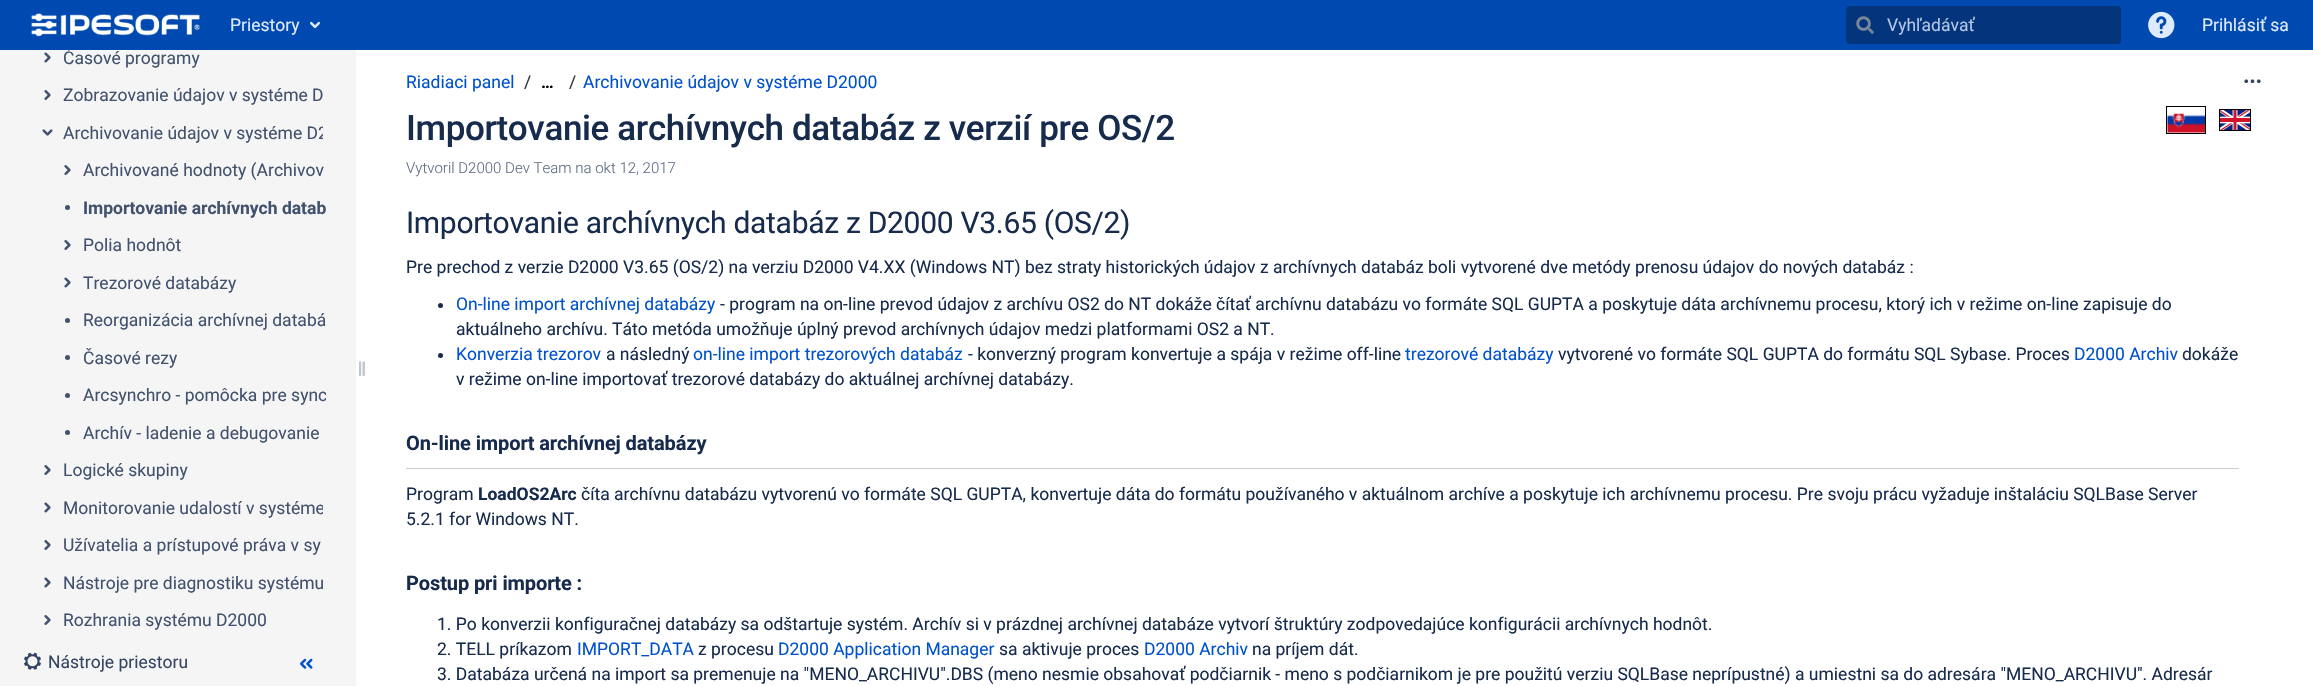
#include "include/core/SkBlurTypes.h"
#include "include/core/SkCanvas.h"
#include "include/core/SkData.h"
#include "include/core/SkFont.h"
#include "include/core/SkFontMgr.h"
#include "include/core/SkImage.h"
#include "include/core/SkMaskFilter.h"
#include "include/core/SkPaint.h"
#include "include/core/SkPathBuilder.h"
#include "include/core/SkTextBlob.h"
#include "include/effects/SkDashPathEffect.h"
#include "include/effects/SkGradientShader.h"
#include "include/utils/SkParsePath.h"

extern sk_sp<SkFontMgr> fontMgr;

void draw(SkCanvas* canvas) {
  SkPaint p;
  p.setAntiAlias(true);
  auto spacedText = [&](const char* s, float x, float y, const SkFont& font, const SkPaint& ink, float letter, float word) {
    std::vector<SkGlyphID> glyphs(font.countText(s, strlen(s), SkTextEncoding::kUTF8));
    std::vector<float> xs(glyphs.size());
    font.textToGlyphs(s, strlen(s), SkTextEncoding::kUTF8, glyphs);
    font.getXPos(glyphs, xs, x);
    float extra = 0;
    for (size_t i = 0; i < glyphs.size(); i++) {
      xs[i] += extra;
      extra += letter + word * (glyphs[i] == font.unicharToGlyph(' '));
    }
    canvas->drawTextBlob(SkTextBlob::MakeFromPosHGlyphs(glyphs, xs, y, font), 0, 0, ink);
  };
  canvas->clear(SkColorSetRGB(245, 245, 245));
  p.setColor(SkColorSetRGB(0, 73, 176));
  canvas->drawRect(SkRect::MakeLTRB(0, 0, 2313, 50), p);
  canvas->drawImageRect(SkImages::DeferredFromEncodedData(SkData::MakeFromFileName("images/1.png")), SkRect::MakeLTRB(31, 13, 200, 37), SkSamplingOptions());
  canvas->drawImageRect(SkImages::DeferredFromEncodedData(SkData::MakeFromFileName("images/2.png")), SkRect::MakeLTRB(310, 21, 320, 29), SkSamplingOptions());
  p.setColor(SkColorSetRGB(4, 52, 123));
  canvas->drawRoundRect(SkRect::MakeLTRB(1846, 6, 2121, 44), 4, 4, p);
  canvas->drawImageRect(SkImages::DeferredFromEncodedData(SkData::MakeFromFileName("images/3.png")), SkRect::MakeLTRB(1856, 16, 1874, 34), SkSamplingOptions());
  canvas->drawImageRect(SkImages::DeferredFromEncodedData(SkData::MakeFromFileName("images/4.png")), SkRect::MakeLTRB(2148, 11, 2175, 39), SkSamplingOptions());
  canvas->drawImageRect(SkImages::DeferredFromEncodedData(SkData::MakeFromFileName("images/5.png")), SkRect::MakeLTRB(44, 52, 51, 63), SkSamplingOptions());
  canvas->drawImageRect(SkImages::DeferredFromEncodedData(SkData::MakeFromFileName("images/6.png")), SkRect::MakeLTRB(44, 90, 51, 100), SkSamplingOptions());
  canvas->drawImageRect(SkImages::DeferredFromEncodedData(SkData::MakeFromFileName("images/7.png")), SkRect::MakeLTRB(42, 129, 53, 136), SkSamplingOptions());
  canvas->drawImageRect(SkImages::DeferredFromEncodedData(SkData::MakeFromFileName("images/6.png")), SkRect::MakeLTRB(64, 165, 71, 175), SkSamplingOptions());
  p.setColor(SkColorSetRGB(66, 82, 110));
  canvas->drawCircle(67.5f, 207.5f, 2.5f, p);
  canvas->drawImageRect(SkImages::DeferredFromEncodedData(SkData::MakeFromFileName("images/6.png")), SkRect::MakeLTRB(64, 240, 71, 250), SkSamplingOptions());
  canvas->drawImageRect(SkImages::DeferredFromEncodedData(SkData::MakeFromFileName("images/5.png")), SkRect::MakeLTRB(64, 277, 71, 288), SkSamplingOptions());
  canvas->drawCircle(67.5f, 320.5f, 2.5f, p);
  canvas->drawCircle(67.5f, 357.5f, 2.5f, p);
  canvas->drawCircle(67.5f, 395.5f, 2.5f, p);
  canvas->drawCircle(67.5f, 432.5f, 2.5f, p);
  canvas->drawImageRect(SkImages::DeferredFromEncodedData(SkData::MakeFromFileName("images/6.png")), SkRect::MakeLTRB(44, 465, 51, 475), SkSamplingOptions());
  canvas->drawImageRect(SkImages::DeferredFromEncodedData(SkData::MakeFromFileName("images/5.png")), SkRect::MakeLTRB(44, 502, 51, 513), SkSamplingOptions());
  canvas->drawImageRect(SkImages::DeferredFromEncodedData(SkData::MakeFromFileName("images/6.png")), SkRect::MakeLTRB(44, 540, 51, 550), SkSamplingOptions());
  canvas->drawImageRect(SkImages::DeferredFromEncodedData(SkData::MakeFromFileName("images/5.png")), SkRect::MakeLTRB(44, 577, 51, 588), SkSamplingOptions());
  canvas->drawImageRect(SkImages::DeferredFromEncodedData(SkData::MakeFromFileName("images/6.png")), SkRect::MakeLTRB(44, 615, 51, 625), SkSamplingOptions());
  p.setColor(SK_ColorWHITE);
  canvas->drawRect(SkRect::MakeLTRB(356, 50, 2313, 686), p);
  canvas->drawImageRect(SkImages::DeferredFromEncodedData(SkData::MakeFromFileName("images/8.png")), SkRect::MakeLTRB(359, 361, 365, 376), SkSamplingOptions());
  canvas->drawImageRect(SkImages::DeferredFromEncodedData(SkData::MakeFromFileName("images/9.png")), SkRect::MakeLTRB(24, 652, 41, 670), SkSamplingOptions());
  canvas->drawImageRect(SkImages::DeferredFromEncodedData(SkData::MakeFromFileName("images/10.png")), SkRect::MakeLTRB(300, 658, 313, 669), SkSamplingOptions());
  p.setStyle(SkPaint::kStroke_Style);
  p.setStrokeWidth(1);
  p.setColor(SK_ColorBLACK);
  canvas->drawRect(SkRect::MakeLTRB(2166.5f, 106.5f, 2205.5f, 133.5f), p);
  canvas->drawImageRect(SkImages::DeferredFromEncodedData(SkData::MakeFromFileName("images/11.png")), SkRect::MakeLTRB(2167, 113, 2205, 133), SkSamplingOptions());
  canvas->drawRect(SkRect::MakeLTRB(2219.5f, 109.5f, 2250.5f, 130.5f), p);
  canvas->drawImageRect(SkImages::DeferredFromEncodedData(SkData::MakeFromFileName("images/12.png")), SkRect::MakeLTRB(2220, 110, 2250, 130), SkSamplingOptions());
  canvas->drawImageRect(SkImages::DeferredFromEncodedData(SkData::MakeFromFileName("images/13.png")), SkRect::MakeLTRB(2244, 79, 2261, 84), SkSamplingOptions());
  p.setStyle(SkPaint::kFill_Style);
  p.setColor(SkColorSetRGB(23, 43, 77));
  canvas->drawCircle(440.5f, 305.5f, 2.5f, p);
  canvas->drawCircle(440.5f, 355.5f, 2.5f, p);
  p.setColor(SkColorSetRGB(204, 204, 204));
  canvas->drawRect(SkRect::MakeLTRB(406, 468, 2239, 469), p);
  SkFont font1(fontMgr->matchFamilyStyle("Roboto", SkFontStyle::Normal()), 17.5f);
  font1.setSubpixel(true);
  p.setColor(SkColorSetRGB(222, 235, 255));
  canvas->drawString("Priestory", 230, 31, font1, p);
  p.setColor(SkColorSetRGB(178, 198, 229));
  canvas->drawString("Vyhľadávať", 1887, 31, font1, p);
  p.setColor(SkColorSetRGB(222, 235, 255));
  canvas->drawString("Prihlásiť sa", 2202, 31, font1, p);
  canvas->save();
  canvas->clipRect(SkRect::MakeLTRB(63, 50, 323, 70));
  p.setColor(SkColorSetRGB(66, 82, 110));
  canvas->drawString("Časové programy", 63, 64, font1, p);
  canvas->restore();
  canvas->drawString("Zobrazovanie údajov v systéme D", 63, 101, font1, p);
  canvas->save();
  canvas->clipRect(SkRect::MakeLTRB(63, 120, 323, 145));
  canvas->drawString("Archivovanie údajov v systéme D2", 63, 139, font1, p);
  canvas->restore();
  canvas->drawString("Archivované hodnoty (Archivov", 83, 176, font1, p);
  SkFont font2(fontMgr->matchFamilyStyle("Roboto", SkFontStyle::Bold()), 17.5f);
  font2.setSubpixel(true);
  canvas->drawString("Importovanie archívnych datab", 83, 214, font2, p);
  canvas->drawString("Polia hodnôt", 83, 251, font1, p);
  canvas->drawString("Trezorové databázy", 83, 289, font1, p);
  canvas->drawString("Reorganizácia archívnej databá", 83, 326, font1, p);
  canvas->drawString("Časové rezy", 83, 364, font1, p);
  canvas->save();
  canvas->clipRect(SkRect::MakeLTRB(83, 383, 326, 408));
  canvas->drawString("Arcsynchro - pomôcka pre sync", 83, 401, font1, p);
  canvas->restore();
  canvas->drawString("Archív - ladenie a debugovanie", 83, 439, font1, p);
  canvas->drawString("Logické skupiny", 63, 476, font1, p);
  canvas->save();
  canvas->clipRect(SkRect::MakeLTRB(63, 495, 323, 520));
  canvas->drawString("Monitorovanie udalostí v systéme", 63, 514, font1, p);
  canvas->restore();
  canvas->drawString("Užívatelia a prístupové práva v sy", 63, 551, font1, p);
  canvas->drawString("Nástroje pre diagnostiku systému", 63, 589, font1, p);
  canvas->drawString("Rozhrania systému D2000", 63, 626, font1, p);
  p.setColor(SkColorSetRGB(52, 69, 99));
  canvas->drawString("Nástroje priestoru", 48, 668, font1, p);
  p.setColor(SkColorSetRGB(0, 82, 204));
  canvas->drawString("Riadiaci panel", 406, 88, font1, p);
  p.setColor(SkColorSetRGB(51, 51, 51));
  canvas->drawString("/", 524, 88, font1, p);
  SkFont font3(fontMgr->matchFamilyStyle("Roboto", SkFontStyle::Bold()), 17);
  font3.setSubpixel(true);
  p.setColor(SK_ColorBLACK);
  canvas->drawString("…", 541, 88, font3, p);
  p.setColor(SkColorSetRGB(51, 51, 51));
  canvas->drawString("/", 569, 88, font1, p);
  p.setColor(SkColorSetRGB(0, 82, 204));
  canvas->drawString("Archivovanie údajov v systéme D2000", 583, 88, font1, p);
  SkFont font4(fontMgr->matchFamilyStyle("Roboto", SkFontStyle(500, SkFontStyle::kNormal_Width, SkFontStyle::kUpright_Slant)), 35);
  font4.setSubpixel(true);
  p.setColor(SkColorSetRGB(23, 43, 77));
  spacedText("Importovanie archívnych databáz z verzií pre OS/2", 406, 140, font4, p, -0.35f, 0);
  SkFont font5(fontMgr->matchFamilyStyle("Roboto", SkFontStyle(300, SkFontStyle::kNormal_Width, SkFontStyle::kUpright_Slant)), 15);
  font5.setSubpixel(true);
  p.setColor(SkColorSetRGB(94, 108, 132));
  canvas->drawString("Vytvoril D2000 Dev Team na okt 12, 2017", 406, 173, font5, p);
  SkFont font6(fontMgr->matchFamilyStyle("Roboto", SkFontStyle::Normal()), 30);
  font6.setSubpixel(true);
  p.setColor(SkColorSetRGB(23, 43, 77));
  spacedText("Importovanie archívnych databáz z D2000 V3.65 (OS/2)", 406, 233, font6, p, -0.3f, 0);
  canvas->drawString("Pre prechod z verzie D2000 V3.65 (OS/2) na verziu D2000 V4.XX (Windows NT) bez straty historických údajov z archívnych databáz boli vytvorené dve metódy prenosu údajov do nových databáz :", 406, 273, font1, p);
  p.setColor(SkColorSetRGB(0, 82, 204));
  canvas->drawString("On-line import archívnej databázy", 456, 310, font1, p);
  p.setColor(SkColorSetRGB(23, 43, 77));
  canvas->drawString("- program na on-line prevod údajov z archívu OS2 do NT dokáže čítať archívnu databázu vo formáte SQL GUPTA a poskytuje dáta archívnemu procesu, ktorý ich v režime on-line zapisuje do", 720, 310, font1, p);
  canvas->drawString("aktuálneho archívu. Táto metóda umožňuje úplný prevod archívnych údajov medzi platformami OS2 a NT.", 456, 335, font1, p);
  p.setColor(SkColorSetRGB(0, 82, 204));
  canvas->drawString("Konverzia trezorov", 456, 360, font1, p);
  p.setColor(SkColorSetRGB(23, 43, 77));
  canvas->drawString("a následný", 606, 360, font1, p);
  p.setColor(SkColorSetRGB(0, 82, 204));
  canvas->drawString("on-line import trezorových databáz", 693, 360, font1, p);
  p.setColor(SkColorSetRGB(23, 43, 77));
  canvas->drawString("- konverzný program konvertuje a spája v režime off-line", 968, 360, font1, p);
  p.setColor(SkColorSetRGB(0, 82, 204));
  canvas->drawString("trezorové databázy", 1405, 360, font1, p);
  p.setColor(SkColorSetRGB(23, 43, 77));
  canvas->drawString("vytvorené vo formáte SQL GUPTA do formátu SQL Sybase. Proces", 1558, 360, font1, p);
  p.setColor(SkColorSetRGB(0, 82, 204));
  canvas->drawString("D2000 Archiv", 2074, 360, font1, p);
  p.setColor(SkColorSetRGB(23, 43, 77));
  canvas->drawString("dokáže", 2182, 360, font1, p);
  canvas->drawString("v režime on-line importovať trezorové databázy do aktuálnej archívnej databázy.", 456, 385, font1, p);
  SkFont font7(fontMgr->matchFamilyStyle("Roboto", SkFontStyle::Bold()), 20);
  font7.setSubpixel(true);
  spacedText("On-line import archívnej databázy", 406, 450, font7, p, -0.1f, 0);
  canvas->drawString("Program", 406, 500, font1, p);
  canvas->drawString("LoadOS2Arc", 478, 500, font2, p);
  canvas->drawString("číta archívnu databázu vytvorenú vo formáte SQL GUPTA, konvertuje dáta do formátu používaného v aktuálnom archíve a poskytuje ich archívnemu procesu. Pre svoju prácu vyžaduje inštaláciu SQLBase Server", 581, 500, font1, p);
  canvas->drawString("5.2.1 for Windows NT.", 406, 525, font1, p);
  spacedText("Postup pri importe :", 406, 590, font7, p, -0.1f, 0);
  canvas->drawString("1. Po konverzii konfiguračnej databázy sa odštartuje systém. Archív si v prázdnej archívnej databáze vytvorí štruktúry zodpovedajúce konfigurácii archívnych hodnôt.", 437, 630, font1, p);
  canvas->drawString("2. TELL príkazom", 437, 655, font1, p);
  p.setColor(SkColorSetRGB(0, 82, 204));
  canvas->drawString("IMPORT_DATA", 577, 655, font1, p);
  p.setColor(SkColorSetRGB(23, 43, 77));
  canvas->drawString("z procesu", 698, 655, font1, p);
  p.setColor(SkColorSetRGB(0, 82, 204));
  canvas->drawString("D2000 Application Manager", 778, 655, font1, p);
  p.setColor(SkColorSetRGB(23, 43, 77));
  canvas->drawString("sa aktivuje proces", 999, 655, font1, p);
  p.setColor(SkColorSetRGB(0, 82, 204));
  canvas->drawString("D2000 Archiv", 1144, 655, font1, p);
  p.setColor(SkColorSetRGB(23, 43, 77));
  canvas->drawString("na príjem dát.", 1252, 655, font1, p);
  canvas->drawString("3. Databáza určená na import sa premenuje na \"MENO_ARCHIVU\".DBS (meno nesmie obsahovať podčiarnik - meno s podčiarnikom je pre použitú verziu SQLBase neprípustné) a umiestni sa do adresára \"MENO_ARCHIVU\". Adresár", 437, 680, font1, p);
}
